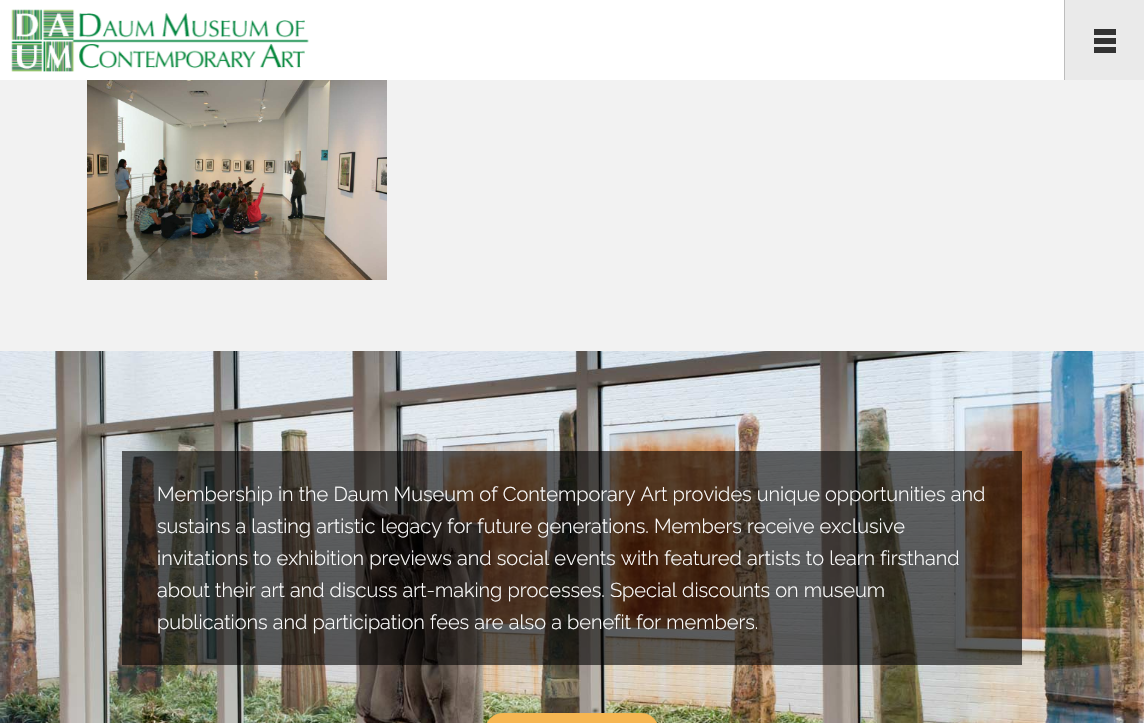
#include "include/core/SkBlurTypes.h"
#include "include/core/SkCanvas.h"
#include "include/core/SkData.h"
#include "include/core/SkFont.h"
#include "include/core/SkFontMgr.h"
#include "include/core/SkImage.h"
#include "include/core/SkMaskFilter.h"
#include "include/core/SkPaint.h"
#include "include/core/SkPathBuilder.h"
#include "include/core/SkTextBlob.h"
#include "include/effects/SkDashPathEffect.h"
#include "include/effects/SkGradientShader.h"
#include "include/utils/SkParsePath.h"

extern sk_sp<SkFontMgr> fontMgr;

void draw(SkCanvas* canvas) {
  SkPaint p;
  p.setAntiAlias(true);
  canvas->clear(SkColorSetRGB(242, 242, 242));
  p.setColor(SK_ColorWHITE);
  canvas->drawRect(SkRect::MakeLTRB(0, 0, 1064, 80), p);
  canvas->drawImageRect(SkImages::DeferredFromEncodedData(SkData::MakeFromFileName("images/1.png")), SkRect::MakeLTRB(11, 9, 309, 72), SkSamplingOptions());
  p.setColor(SkColorSetRGB(234, 234, 234));
  canvas->drawRect(SkRect::MakeLTRB(1065, 0, 1144, 80), p);
  p.setColor(SkColorSetRGB(189, 189, 189));
  canvas->drawRect(SkRect::MakeLTRB(1064, 0, 1065, 80), p);
  p.setColor(SkColorSetRGB(51, 51, 51));
  canvas->drawRect(SkRect::MakeLTRB(1094, 47, 1116, 53), p);
  canvas->drawRect(SkRect::MakeLTRB(1094, 38, 1116, 44), p);
  canvas->drawRect(SkRect::MakeLTRB(1094, 29, 1116, 35), p);
  canvas->drawImageRect(SkImages::DeferredFromEncodedData(SkData::MakeFromFileName("images/2.png")), SkRect::MakeLTRB(87, 80, 387, 280), SkSamplingOptions());
  canvas->drawImageRect(SkImages::DeferredFromEncodedData(SkData::MakeFromFileName("images/3.png")), SkRect::MakeLTRB(0, 351, 1144, 723), SkSamplingOptions());
  p.setColor(SkColorSetARGB(153, 0, 0, 0));
  canvas->drawRect(SkRect::MakeLTRB(122, 451, 1022, 665), p);
  p.setColor(SkColorSetRGB(246, 182, 82));
  canvas->drawRoundRect(SkRect::MakeLTRB(485, 713, 659, 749), 26, 26, p);
  SkFont font1(fontMgr->matchFamilyStyle("Raleway", SkFontStyle(300, SkFontStyle::kNormal_Width, SkFontStyle::kUpright_Slant)), 20);
  font1.setSubpixel(true);
  p.setColor(SK_ColorWHITE);
  canvas->drawString("Membership in the Daum Museum of Contemporary Art provides unique opportunities and", 157, 501, font1, p);
  canvas->drawString("sustains a lasting artistic legacy for future generations. Members receive exclusive", 157, 533, font1, p);
  canvas->drawString("invitations to exhibition previews and social events with featured artists to learn firsthand", 157, 565, font1, p);
  canvas->drawString("about their art and discuss art-making processes. Special discounts on museum", 157, 597, font1, p);
  canvas->drawString("publications and participation fees are also a benefit for members.", 157, 629, font1, p);
}
